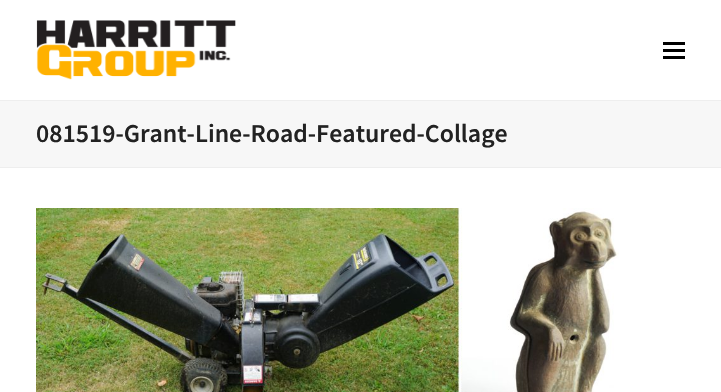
#include "include/core/SkBlurTypes.h"
#include "include/core/SkCanvas.h"
#include "include/core/SkData.h"
#include "include/core/SkFont.h"
#include "include/core/SkFontMgr.h"
#include "include/core/SkImage.h"
#include "include/core/SkMaskFilter.h"
#include "include/core/SkPaint.h"
#include "include/core/SkPathBuilder.h"
#include "include/core/SkTextBlob.h"
#include "include/effects/SkDashPathEffect.h"
#include "include/effects/SkGradientShader.h"
#include "include/utils/SkParsePath.h"

extern sk_sp<SkFontMgr> fontMgr;

void draw(SkCanvas* canvas) {
  SkPaint p;
  p.setAntiAlias(true);
  canvas->clear(SK_ColorWHITE);
  canvas->drawImageRect(SkImages::DeferredFromEncodedData(SkData::MakeFromFileName("images/1.png")), SkRect::MakeLTRB(36, 20, 236, 80), SkSamplingOptions());
  p.setColor(SK_ColorBLACK);
  canvas->drawRect(SkRect::MakeLTRB(663, 49, 685, 52), p);
  canvas->drawRect(SkRect::MakeLTRB(663, 42, 685, 45), p);
  canvas->drawRect(SkRect::MakeLTRB(663, 56, 685, 59), p);
  p.setColor(SkColorSetRGB(247, 247, 247));
  canvas->drawRect(SkRect::MakeLTRB(0, 101, 721, 167), p);
  p.setColor(SkColorSetRGB(238, 238, 238));
  canvas->drawRect(SkRect::MakeLTRB(0, 100, 721, 101), p);
  canvas->drawRect(SkRect::MakeLTRB(0, 167, 721, 168), p);
  canvas->drawImageRect(SkImages::DeferredFromEncodedData(SkData::MakeFromFileName("images/2.png")), SkRect::MakeLTRB(36, 208, 619, 392), SkSamplingOptions());
  SkFont font1(fontMgr->matchFamilyStyle("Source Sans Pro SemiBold", SkFontStyle(600, SkFontStyle::kNormal_Width, SkFontStyle::kUpright_Slant)), 25.8f);
  font1.setSubpixel(true);
  p.setColor(SkColorSetRGB(34, 34, 34));
  canvas->drawString("081519-Grant-Line-Road-Featured-Collage", 36, 142, font1, p);
}
